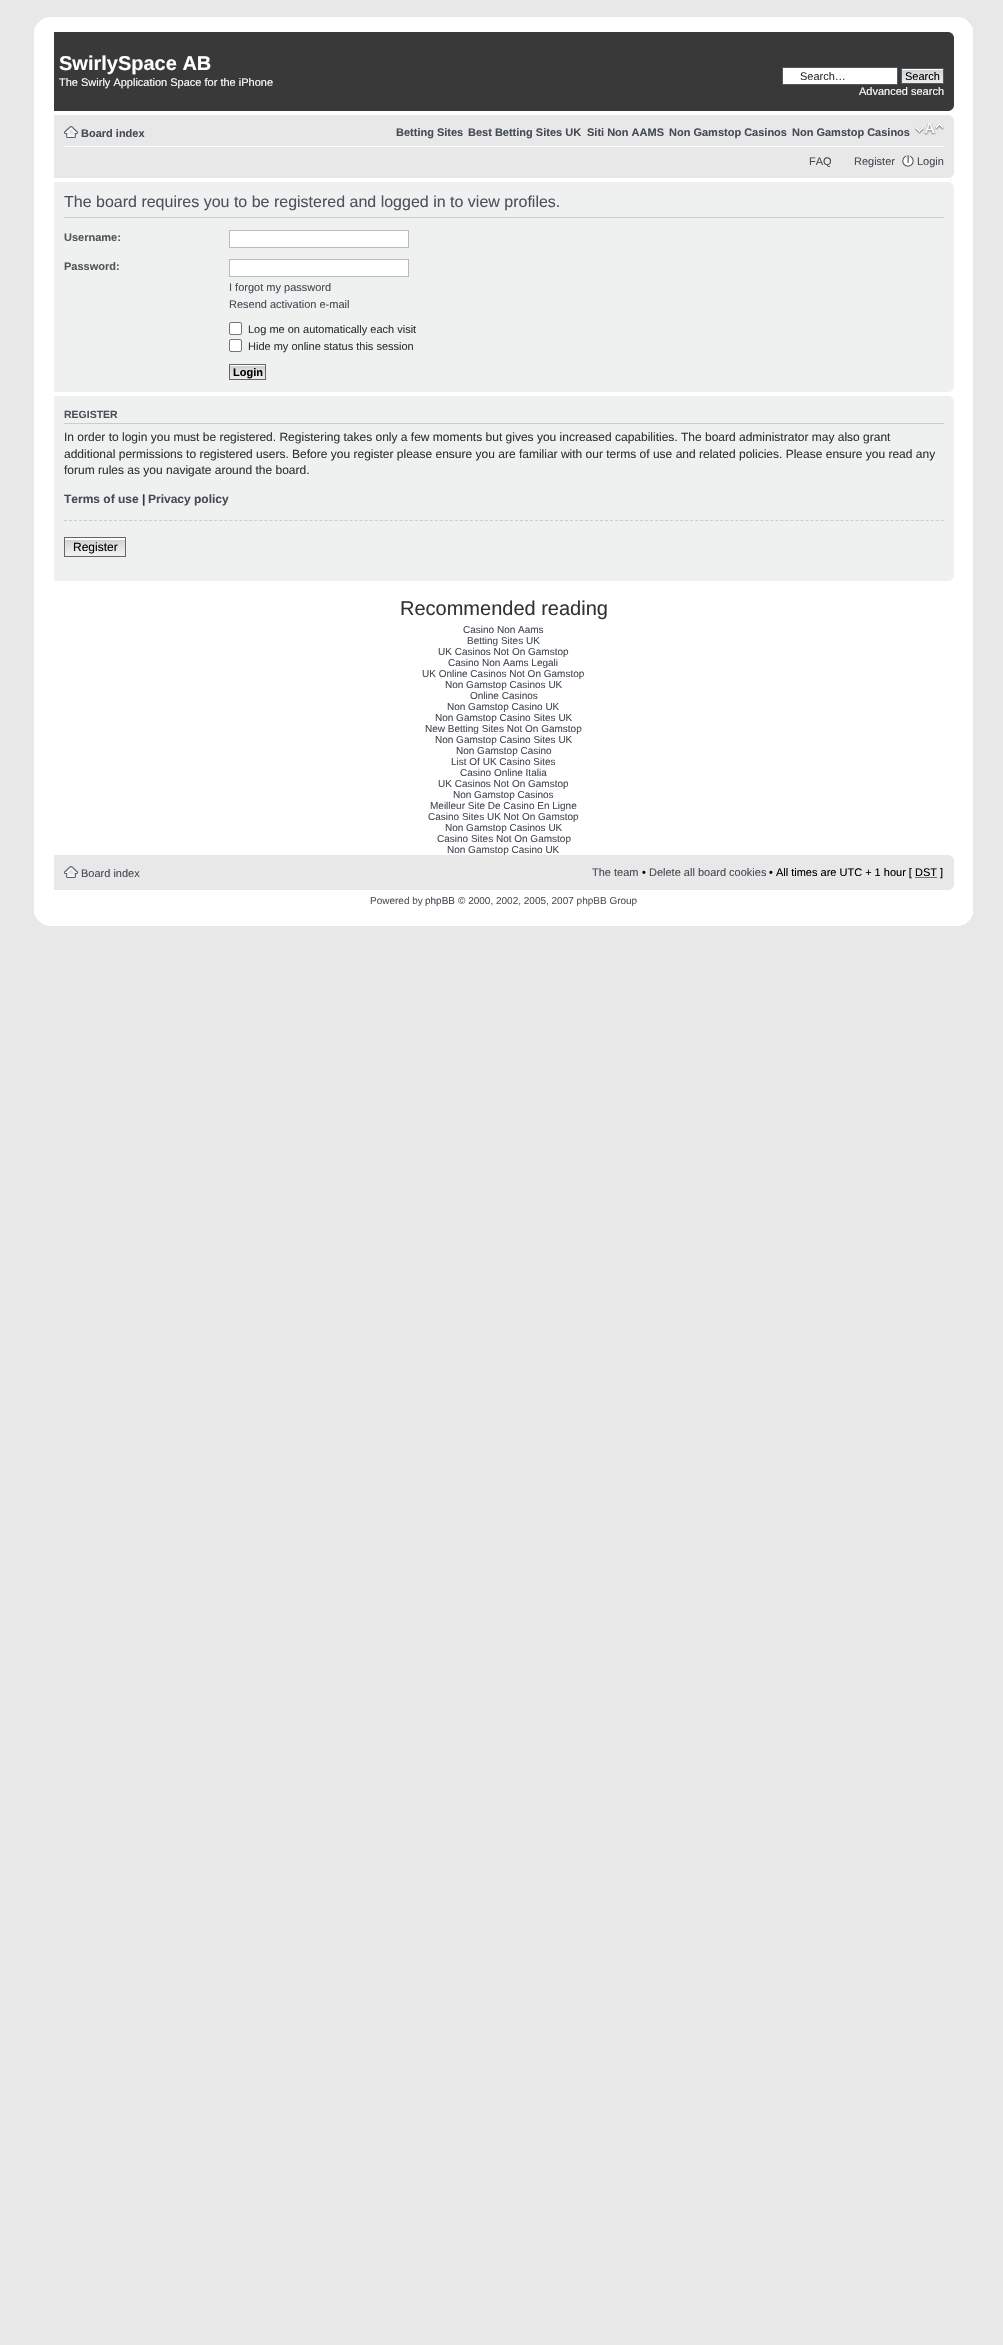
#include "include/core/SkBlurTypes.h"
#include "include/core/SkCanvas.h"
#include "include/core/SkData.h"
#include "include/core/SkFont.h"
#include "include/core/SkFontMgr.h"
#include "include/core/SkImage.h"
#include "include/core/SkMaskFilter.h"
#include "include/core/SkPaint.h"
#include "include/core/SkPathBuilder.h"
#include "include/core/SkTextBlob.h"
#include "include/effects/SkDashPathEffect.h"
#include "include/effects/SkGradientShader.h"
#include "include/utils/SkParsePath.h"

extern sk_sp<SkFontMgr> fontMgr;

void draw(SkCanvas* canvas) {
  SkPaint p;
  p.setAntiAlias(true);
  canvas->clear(SkColorSetRGB(232, 232, 232));
  canvas->drawImageRect(SkImages::DeferredFromEncodedData(SkData::MakeFromFileName("images/1.png")), SkRect::MakeLTRB(34, 17, 49, 32), SkSamplingOptions());
  p.setColor(SK_ColorWHITE);
  canvas->drawRect(SkRect::MakeLTRB(49, 17, 957, 32), p);
  canvas->drawImageRect(SkImages::DeferredFromEncodedData(SkData::MakeFromFileName("images/2.png")), SkRect::MakeLTRB(957, 17, 973, 32), SkSamplingOptions());
  canvas->drawRect(SkRect::MakeLTRB(34, 32, 973, 911), p);
  p.setColor(SkColorSetRGB(57, 57, 57));
  canvas->drawRect(SkRect::MakeLTRB(54, 32, 954, 111), p);
  canvas->drawImageRect(SkImages::DeferredFromEncodedData(SkData::MakeFromFileName("images/3.png")), SkRect::MakeLTRB(948, 32, 954, 37), SkSamplingOptions());
  p.setColor(SK_ColorWHITE);
  canvas->drawRect(SkRect::MakeLTRB(782.5f, 67.5f, 897.5f, 84.5f), p);
  p.setStyle(SkPaint::kStroke_Style);
  p.setStrokeWidth(1);
  p.setColor(SkColorSetRGB(77, 89, 99));
  canvas->drawRect(SkRect::MakeLTRB(782.5f, 67.5f, 897.5f, 84.5f), p);
  canvas->drawImageRect(SkImages::DeferredFromEncodedData(SkData::MakeFromFileName("images/4.png")), SkRect::MakeLTRB(902, 69, 943, 83), SkSamplingOptions());
  canvas->drawRect(SkRect::MakeLTRB(901.5f, 68.5f, 943.5f, 83.5f), p);
  canvas->drawImageRect(SkImages::DeferredFromEncodedData(SkData::MakeFromFileName("images/5.png")), SkRect::MakeLTRB(949, 106, 954, 111), SkSamplingOptions());
  p.setStyle(SkPaint::kFill_Style);
  p.setColor(SkColorSetRGB(232, 232, 232));
  canvas->drawRect(SkRect::MakeLTRB(54, 115, 954, 178), p);
  canvas->drawImageRect(SkImages::DeferredFromEncodedData(SkData::MakeFromFileName("images/6.png")), SkRect::MakeLTRB(949, 115, 954, 120), SkSamplingOptions());
  p.setColor(SK_ColorWHITE);
  canvas->drawRect(SkRect::MakeLTRB(64, 146, 944, 147), p);
  canvas->drawImageRect(SkImages::DeferredFromEncodedData(SkData::MakeFromFileName("images/7.png")), SkRect::MakeLTRB(64, 126, 78, 138), SkSamplingOptions());
  canvas->drawImageRect(SkImages::DeferredFromEncodedData(SkData::MakeFromFileName("images/8.png")), SkRect::MakeLTRB(915, 123, 944, 135), SkSamplingOptions());
  canvas->drawImageRect(SkImages::DeferredFromEncodedData(SkData::MakeFromFileName("images/9.png")), SkRect::MakeLTRB(902, 155, 914, 167), SkSamplingOptions());
  canvas->drawImageRect(SkImages::DeferredFromEncodedData(SkData::MakeFromFileName("images/10.png")), SkRect::MakeLTRB(949, 173, 954, 178), SkSamplingOptions());
  p.setColor(SkColorSetRGB(239, 240, 240));
  canvas->drawRect(SkRect::MakeLTRB(54, 182, 954, 392), p);
  canvas->drawImageRect(SkImages::DeferredFromEncodedData(SkData::MakeFromFileName("images/11.png")), SkRect::MakeLTRB(950, 182, 954, 186), SkSamplingOptions());
  p.setColor(SkColorSetRGB(204, 204, 204));
  canvas->drawRect(SkRect::MakeLTRB(64, 217, 944, 218), p);
  p.setColor(SK_ColorWHITE);
  canvas->drawRect(SkRect::MakeLTRB(229.5f, 230.5f, 408.5f, 247.5f), p);
  p.setStyle(SkPaint::kStroke_Style);
  p.setColor(SkColorSetRGB(185, 186, 187));
  canvas->drawRect(SkRect::MakeLTRB(229.5f, 230.5f, 408.5f, 247.5f), p);
  p.setStyle(SkPaint::kFill_Style);
  p.setColor(SK_ColorWHITE);
  canvas->drawRect(SkRect::MakeLTRB(229.5f, 259.5f, 408.5f, 276.5f), p);
  p.setStyle(SkPaint::kStroke_Style);
  p.setColor(SkColorSetRGB(185, 186, 187));
  canvas->drawRect(SkRect::MakeLTRB(229.5f, 259.5f, 408.5f, 276.5f), p);
  p.setStyle(SkPaint::kFill_Style);
  p.setColor(SK_ColorWHITE);
  canvas->drawRoundRect(SkRect::MakeLTRB(229.5f, 322.5f, 241.5f, 334.5f), 1.5f, 1.5f, p);
  p.setStyle(SkPaint::kStroke_Style);
  p.setColor(SkColorSetRGB(118, 118, 118));
  canvas->drawRoundRect(SkRect::MakeLTRB(229.5f, 322.5f, 241.5f, 334.5f), 1.5f, 1.5f, p);
  p.setStyle(SkPaint::kFill_Style);
  p.setColor(SK_ColorWHITE);
  canvas->drawRoundRect(SkRect::MakeLTRB(229.5f, 339.5f, 241.5f, 351.5f), 1.5f, 1.5f, p);
  p.setStyle(SkPaint::kStroke_Style);
  p.setColor(SkColorSetRGB(118, 118, 118));
  canvas->drawRoundRect(SkRect::MakeLTRB(229.5f, 339.5f, 241.5f, 351.5f), 1.5f, 1.5f, p);
  canvas->drawImageRect(SkImages::DeferredFromEncodedData(SkData::MakeFromFileName("images/12.png")), SkRect::MakeLTRB(230, 365, 265, 379), SkSamplingOptions());
  p.setColor(SkColorSetRGB(102, 102, 102));
  canvas->drawRect(SkRect::MakeLTRB(229.5f, 364.5f, 265.5f, 379.5f), p);
  canvas->drawImageRect(SkImages::DeferredFromEncodedData(SkData::MakeFromFileName("images/13.png")), SkRect::MakeLTRB(950, 388, 954, 392), SkSamplingOptions());
  p.setStyle(SkPaint::kFill_Style);
  p.setColor(SkColorSetRGB(239, 240, 240));
  canvas->drawRect(SkRect::MakeLTRB(54, 396, 954, 581), p);
  canvas->drawImageRect(SkImages::DeferredFromEncodedData(SkData::MakeFromFileName("images/11.png")), SkRect::MakeLTRB(950, 396, 954, 400), SkSamplingOptions());
  p.setColor(SkColorSetRGB(204, 204, 204));
  canvas->drawRect(SkRect::MakeLTRB(64, 423, 944, 424), p);
  p.setStyle(SkPaint::kStroke_Style);
  p.setPathEffect(SkDashPathEffect::Make({{3, 2.01f}}, 0));
  canvas->drawPath(SkPathBuilder().moveTo(64, 520.5f).lineTo(944, 520.5f).detach(), p);
  p.setPathEffect(nullptr);
  canvas->drawImageRect(SkImages::DeferredFromEncodedData(SkData::MakeFromFileName("images/14.png")), SkRect::MakeLTRB(65, 539, 125, 556), SkSamplingOptions());
  p.setStyle(SkPaint::kFill_Style);
  p.setColor(SkColorSetRGB(250, 250, 250));
  canvas->drawRect(SkRect::MakeLTRB(65, 538, 125, 539), p);
  p.setStyle(SkPaint::kStroke_Style);
  p.setColor(SkColorSetRGB(102, 102, 102));
  canvas->drawRect(SkRect::MakeLTRB(64.5f, 537.5f, 125.5f, 556.5f), p);
  canvas->drawImageRect(SkImages::DeferredFromEncodedData(SkData::MakeFromFileName("images/13.png")), SkRect::MakeLTRB(950, 577, 954, 581), SkSamplingOptions());
  p.setStyle(SkPaint::kFill_Style);
  p.setColor(SkColorSetRGB(232, 232, 232));
  canvas->drawRect(SkRect::MakeLTRB(54, 855, 954, 890), p);
  canvas->drawImageRect(SkImages::DeferredFromEncodedData(SkData::MakeFromFileName("images/6.png")), SkRect::MakeLTRB(949, 855, 954, 860), SkSamplingOptions());
  canvas->drawImageRect(SkImages::DeferredFromEncodedData(SkData::MakeFromFileName("images/7.png")), SkRect::MakeLTRB(64, 866, 78, 878), SkSamplingOptions());
  p.setStyle(SkPaint::kStroke_Style);
  p.setColor(SK_ColorBLACK);
  p.setPathEffect(SkDashPathEffect::Make({{1, 1}}, 0));
  canvas->drawPath(SkPathBuilder().moveTo(915.5f, 877.5f).lineTo(937.5f, 877.5f).detach(), p);
  p.setPathEffect(nullptr);
  canvas->drawImageRect(SkImages::DeferredFromEncodedData(SkData::MakeFromFileName("images/10.png")), SkRect::MakeLTRB(949, 885, 954, 890), SkSamplingOptions());
  canvas->drawImageRect(SkImages::DeferredFromEncodedData(SkData::MakeFromFileName("images/15.png")), SkRect::MakeLTRB(34, 911, 49, 926), SkSamplingOptions());
  p.setStyle(SkPaint::kFill_Style);
  p.setColor(SK_ColorWHITE);
  canvas->drawRect(SkRect::MakeLTRB(49, 911, 957, 926), p);
  canvas->drawImageRect(SkImages::DeferredFromEncodedData(SkData::MakeFromFileName("images/16.png")), SkRect::MakeLTRB(957, 911, 973, 926), SkSamplingOptions());
  SkFont font1(fontMgr->matchFamilyStyle("Liberation Sans", SkFontStyle::Bold()), 20);
  font1.setSubpixel(true);
  canvas->drawString("SwirlySpace AB", 59, 70, font1, p);
  SkFont font2(fontMgr->matchFamilyStyle("Liberation Sans", SkFontStyle::Normal()), 11);
  font2.setSubpixel(true);
  canvas->drawString("The Swirly Application Space for the iPhone", 59, 86, font2, p);
  p.setColor(SkColorSetRGB(50, 51, 53));
  canvas->drawString("Search…", 800, 80, font2, p);
  p.setColor(SK_ColorBLACK);
  canvas->drawString("Search", 905, 80, font2, p);
  p.setColor(SK_ColorWHITE);
  canvas->drawString("Advanced search", 859, 95, font2, p);
  SkFont font3(fontMgr->matchFamilyStyle("Liberation Sans", SkFontStyle::Bold()), 11);
  font3.setSubpixel(true);
  p.setColor(SkColorSetRGB(69, 75, 84));
  canvas->drawString("Board index", 81, 137, font3, p);
  canvas->drawString("Betting Sites", 396, 136, font3, p);
  canvas->drawString("Best Betting Sites UK", 468, 136, font3, p);
  canvas->drawString("Siti Non AAMS", 587, 136, font3, p);
  canvas->drawString("Non Gamstop Casinos", 669, 136, font3, p);
  canvas->drawString("Non Gamstop Casinos", 792, 136, font3, p);
  canvas->drawString("FAQ", 809, 165, font2, p);
  canvas->drawString("Register", 854, 165, font2, p);
  canvas->drawString("Login", 917, 165, font2, p);
  SkFont font4(fontMgr->matchFamilyStyle("Liberation Sans", SkFontStyle::Normal()), 16);
  font4.setSubpixel(true);
  p.setColor(SkColorSetRGB(76, 82, 93));
  canvas->drawString("The board requires you to be registered and logged in to view profiles.", 64, 207, font4, p);
  p.setColor(SkColorSetRGB(85, 85, 85));
  canvas->drawString("Username:", 64, 241, font3, p);
  canvas->drawString("Password:", 64, 270, font3, p);
  p.setColor(SkColorSetRGB(69, 75, 84));
  canvas->drawString("I forgot my password", 229, 291, font2, p);
  canvas->drawString("Resend activation e-mail", 229, 308, font2, p);
  p.setColor(SkColorSetRGB(50, 51, 53));
  canvas->drawString("Log me on automatically each visit", 248, 333, font2, p);
  canvas->drawString("Hide my online status this session", 248, 350, font2, p);
  p.setColor(SK_ColorBLACK);
  canvas->drawString("Login", 233, 376, font3, p);
  SkFont font5(fontMgr->matchFamilyStyle("Liberation Sans", SkFontStyle::Bold()), 10.5f);
  font5.setSubpixel(true);
  p.setColor(SkColorSetRGB(76, 82, 93));
  canvas->drawString("REGISTER", 64, 418, font5, p);
  SkFont font6(fontMgr->matchFamilyStyle("Liberation Sans", SkFontStyle::Normal()), 12);
  font6.setSubpixel(true);
  p.setColor(SkColorSetRGB(50, 51, 53));
  canvas->drawString("In order to login you must be registered. Registering takes only a few moments but gives you increased capabilities. The board administrator may also grant", 64, 441, font6, p);
  canvas->drawString("additional permissions to registered users. Before you register please ensure you are familiar with our terms of use and related policies. Please ensure you read any", 64, 458, font6, p);
  canvas->drawString("forum rules as you navigate around the board.", 64, 474, font6, p);
  SkFont font7(fontMgr->matchFamilyStyle("Liberation Sans", SkFontStyle::Bold()), 12);
  font7.setSubpixel(true);
  p.setColor(SkColorSetRGB(69, 75, 84));
  canvas->drawString("Terms of use", 64, 503, font7, p);
  p.setColor(SkColorSetRGB(50, 51, 53));
  canvas->drawString("|", 142, 503, font7, p);
  p.setColor(SkColorSetRGB(69, 75, 84));
  canvas->drawString("Privacy policy", 148, 503, font7, p);
  p.setColor(SK_ColorBLACK);
  canvas->drawString("Register", 73, 551, font6, p);
  SkFont font8(fontMgr->matchFamilyStyle("Liberation Sans", SkFontStyle::Normal()), 20);
  font8.setSubpixel(true);
  p.setColor(SkColorSetRGB(50, 51, 53));
  canvas->drawString("Recommended reading", 400, 615, font8, p);
  SkFont font9(fontMgr->matchFamilyStyle("Liberation Sans", SkFontStyle::Normal()), 10);
  font9.setSubpixel(true);
  p.setColor(SkColorSetRGB(69, 75, 84));
  canvas->drawString("Casino Non Aams", 463, 633, font9, p);
  canvas->drawString("Betting Sites UK", 467, 644, font9, p);
  canvas->drawString("UK Casinos Not On Gamstop", 438, 655, font9, p);
  canvas->drawString("Casino Non Aams Legali", 448, 666, font9, p);
  canvas->drawString("UK Online Casinos Not On Gamstop", 422, 677, font9, p);
  canvas->drawString("Non Gamstop Casinos UK", 445, 688, font9, p);
  canvas->drawString("Online Casinos", 470, 699, font9, p);
  canvas->drawString("Non Gamstop Casino UK", 447, 710, font9, p);
  canvas->drawString("Non Gamstop Casino Sites UK", 435, 721, font9, p);
  canvas->drawString("New Betting Sites Not On Gamstop", 425, 732, font9, p);
  canvas->drawString("Non Gamstop Casino Sites UK", 435, 743, font9, p);
  canvas->drawString("Non Gamstop Casino", 456, 754, font9, p);
  canvas->drawString("List Of UK Casino Sites", 451, 765, font9, p);
  canvas->drawString("Casino Online Italia", 460, 776, font9, p);
  canvas->drawString("UK Casinos Not On Gamstop", 438, 787, font9, p);
  canvas->drawString("Non Gamstop Casinos", 453, 798, font9, p);
  canvas->drawString("Meilleur Site De Casino En Ligne", 430, 809, font9, p);
  canvas->drawString("Casino Sites UK Not On Gamstop", 428, 820, font9, p);
  canvas->drawString("Non Gamstop Casinos UK", 445, 831, font9, p);
  canvas->drawString("Casino Sites Not On Gamstop", 437, 842, font9, p);
  canvas->drawString("Non Gamstop Casino UK", 447, 853, font9, p);
  canvas->drawString("Board index", 81, 877, font2, p);
  canvas->drawString("The team", 592, 876, font2, p);
  p.setColor(SK_ColorBLACK);
  canvas->drawString("•", 642, 876, font2, p);
  p.setColor(SkColorSetRGB(69, 75, 84));
  canvas->drawString("Delete all board cookies", 649, 876, font2, p);
  p.setColor(SK_ColorBLACK);
  canvas->drawString("• All times are UTC + 1 hour [ DST ]", 769, 876, font2, p);
  p.setColor(SkColorSetRGB(85, 85, 85));
  canvas->drawString("Powered by", 370, 904, font9, p);
  p.setColor(SkColorSetRGB(69, 75, 84));
  canvas->drawString("phpBB", 425, 904, font9, p);
  p.setColor(SkColorSetRGB(85, 85, 85));
  canvas->drawString("© 2000, 2002, 2005, 2007 phpBB Group", 458, 904, font9, p);
}
